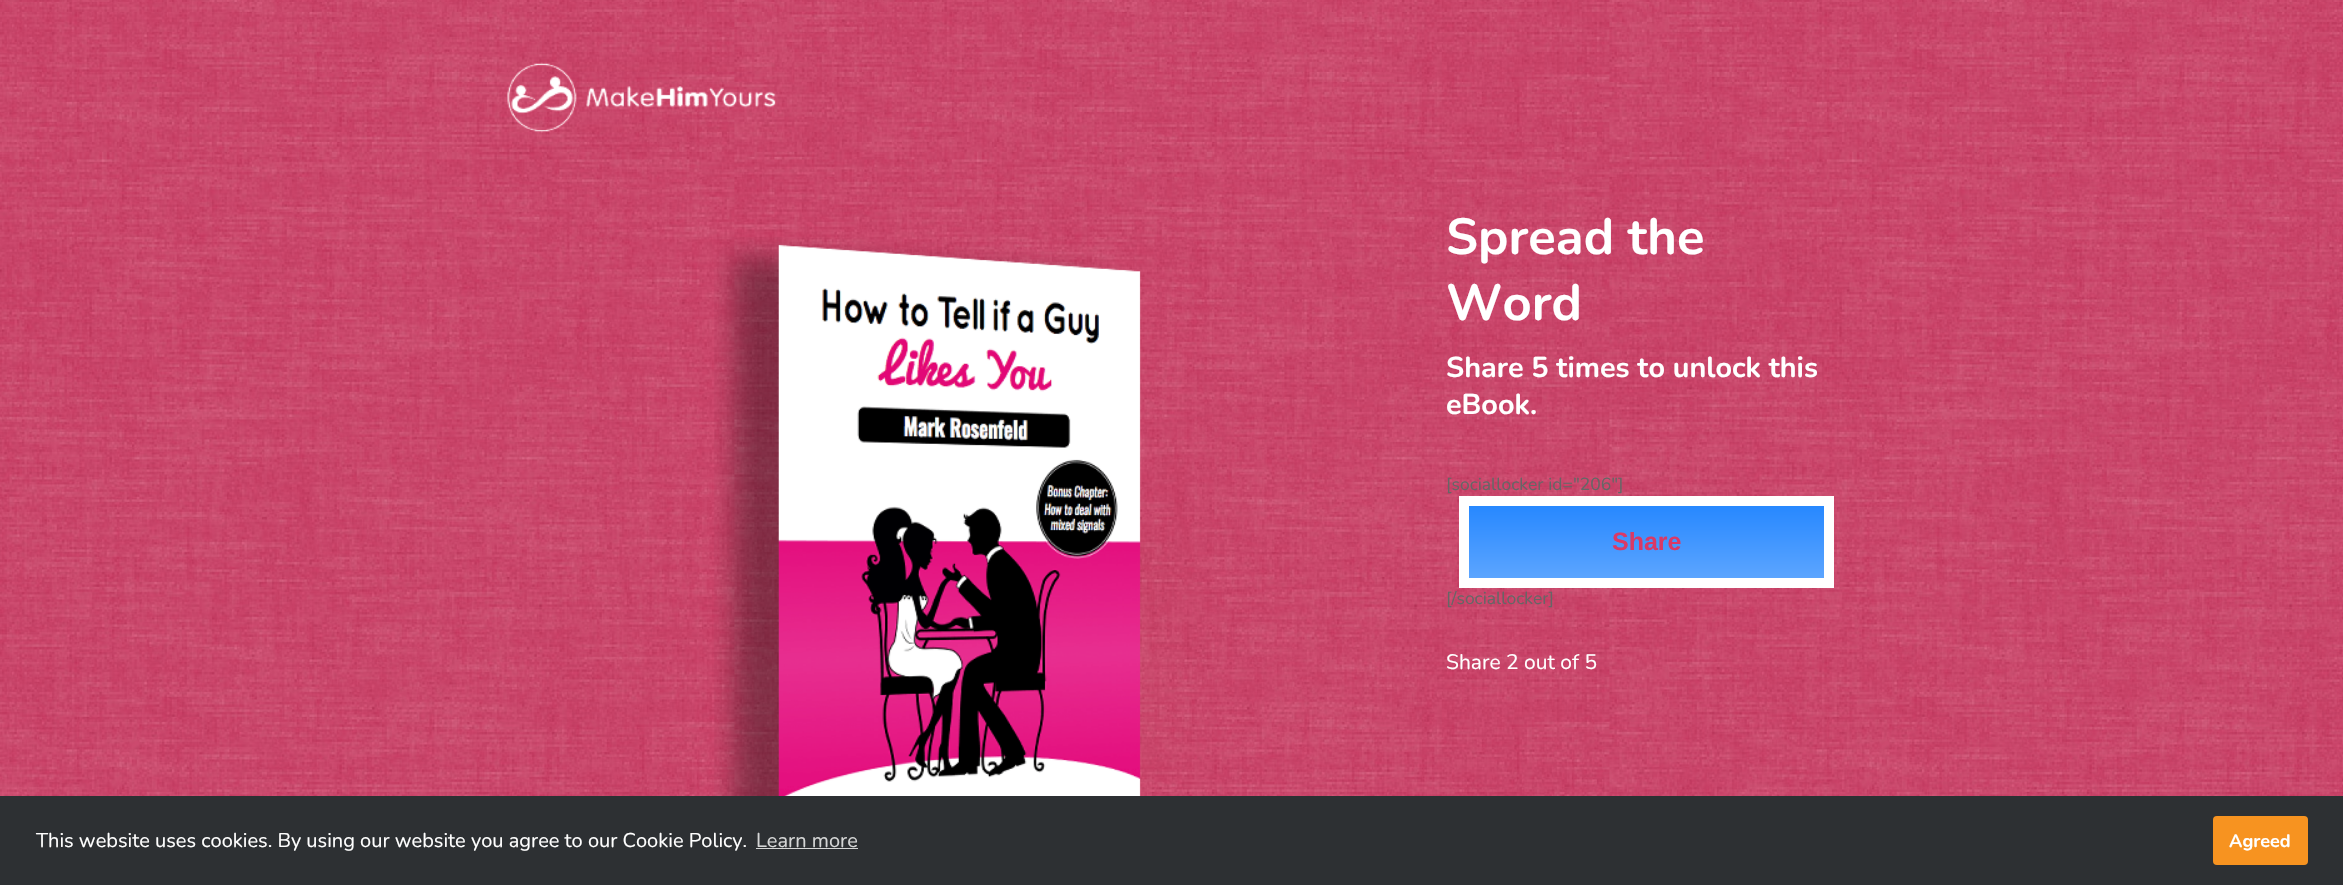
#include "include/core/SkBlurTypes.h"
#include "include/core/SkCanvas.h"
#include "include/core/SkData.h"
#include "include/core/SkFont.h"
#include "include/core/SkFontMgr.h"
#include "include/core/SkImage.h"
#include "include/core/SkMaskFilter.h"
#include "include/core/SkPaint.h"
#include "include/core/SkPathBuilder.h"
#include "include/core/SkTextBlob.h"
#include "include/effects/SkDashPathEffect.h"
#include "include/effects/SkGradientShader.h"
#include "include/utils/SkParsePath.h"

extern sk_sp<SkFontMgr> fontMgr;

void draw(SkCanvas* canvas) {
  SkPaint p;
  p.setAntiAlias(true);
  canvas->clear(SK_ColorWHITE);
  canvas->drawImageRect(SkImages::DeferredFromEncodedData(SkData::MakeFromFileName("images/1.png")), SkRect::MakeLTRB(0, 0, 2343, 796), SkSamplingOptions());
  canvas->drawImageRect(SkImages::DeferredFromEncodedData(SkData::MakeFromFileName("images/2.png")), SkRect::MakeLTRB(507, 62, 776, 133), SkSamplingOptions());
  canvas->drawImageRect(SkImages::DeferredFromEncodedData(SkData::MakeFromFileName("images/3.png")), SkRect::MakeLTRB(714, 237, 1141, 796), SkSamplingOptions());
  {
    const SkColor colors[] = {SkColorSetRGB(39, 136, 255), SkColorSetRGB(92, 165, 255)};
    const float stops[] = {0, 1};
    const SkPoint ends[] = {{1646, 506}, {1646, 578}};
    p.setShader(SkGradientShader::MakeLinear(ends, colors, stops, 2, SkTileMode::kClamp));
    p.setAlpha(255);
  }
  canvas->drawRect(SkRect::MakeLTRB(1469, 506, 1824, 578), p);
  p.setStyle(SkPaint::kStroke_Style);
  p.setStrokeWidth(10);
  p.setShader(nullptr);
  p.setColor(SK_ColorWHITE);
  canvas->drawRect(SkRect::MakeLTRB(1464, 501, 1829, 583), p);
  p.setStyle(SkPaint::kFill_Style);
  p.setColor(SkColorSetRGB(45, 48, 51));
  canvas->drawRect(SkRect::MakeLTRB(0, 796, 2343, 885), p);
  p.setColor(SkColorSetRGB(213, 214, 214));
  canvas->drawRect(SkRect::MakeLTRB(756, 848, 858, 849), p);
  p.setColor(SkColorSetRGB(247, 147, 32));
  canvas->drawRoundRect(SkRect::MakeLTRB(2213, 816, 2308, 865), 4, 4, p);
  SkFont font1(fontMgr->matchFamilyStyle("Nunito", SkFontStyle::Bold()), 50.75f);
  font1.setSubpixel(true);
  p.setColor(SK_ColorWHITE);
  canvas->drawString("Spread the", 1446, 254, font1, p);
  canvas->drawString("Word", 1446, 320, font1, p);
  SkFont font2(fontMgr->matchFamilyStyle("Nunito", SkFontStyle::Bold()), 28.75f);
  font2.setSubpixel(true);
  canvas->drawString("Share 5 times to unlock this", 1446, 377, font2, p);
  canvas->drawString("eBook.", 1446, 414, font2, p);
  SkFont font3(fontMgr->matchFamilyStyle("Nunito", SkFontStyle::Normal()), 17.5f);
  font3.setSubpixel(true);
  p.setColor(SkColorSetRGB(102, 102, 102));
  canvas->drawString("[sociallocker id=\"206\"]", 1446, 490, font3, p);
  SkFont font4(fontMgr->matchFamilyStyle("Liberation Sans", SkFontStyle::Bold()), 25);
  font4.setSubpixel(true);
  p.setColor(SkColorSetRGB(218, 57, 103));
  canvas->drawString("Share", 1612, 550, font4, p);
  p.setColor(SkColorSetRGB(102, 102, 102));
  canvas->drawString("[/sociallocker]", 1446, 604, font3, p);
  SkFont font5(fontMgr->matchFamilyStyle("Nunito", SkFontStyle::Normal()), 21);
  font5.setSubpixel(true);
  p.setColor(SK_ColorWHITE);
  canvas->drawString("Share 2 out of 5", 1446, 669, font5, p);
  SkFont font6(fontMgr->matchFamilyStyle("Nunito", SkFontStyle::Normal()), 20);
  font6.setSubpixel(true);
  canvas->drawString("This website uses cookies. By using our website you agree to our Cookie Policy.", 36, 847, font6, p);
  p.setColor(SkColorSetRGB(213, 214, 214));
  canvas->drawString("Learn more", 756, 847, font6, p);
  SkFont font7(fontMgr->matchFamilyStyle("Nunito", SkFontStyle::Bold()), 18);
  font7.setSubpixel(true);
  p.setColor(SK_ColorWHITE);
  canvas->drawString("Agreed", 2229, 847, font7, p);
}
